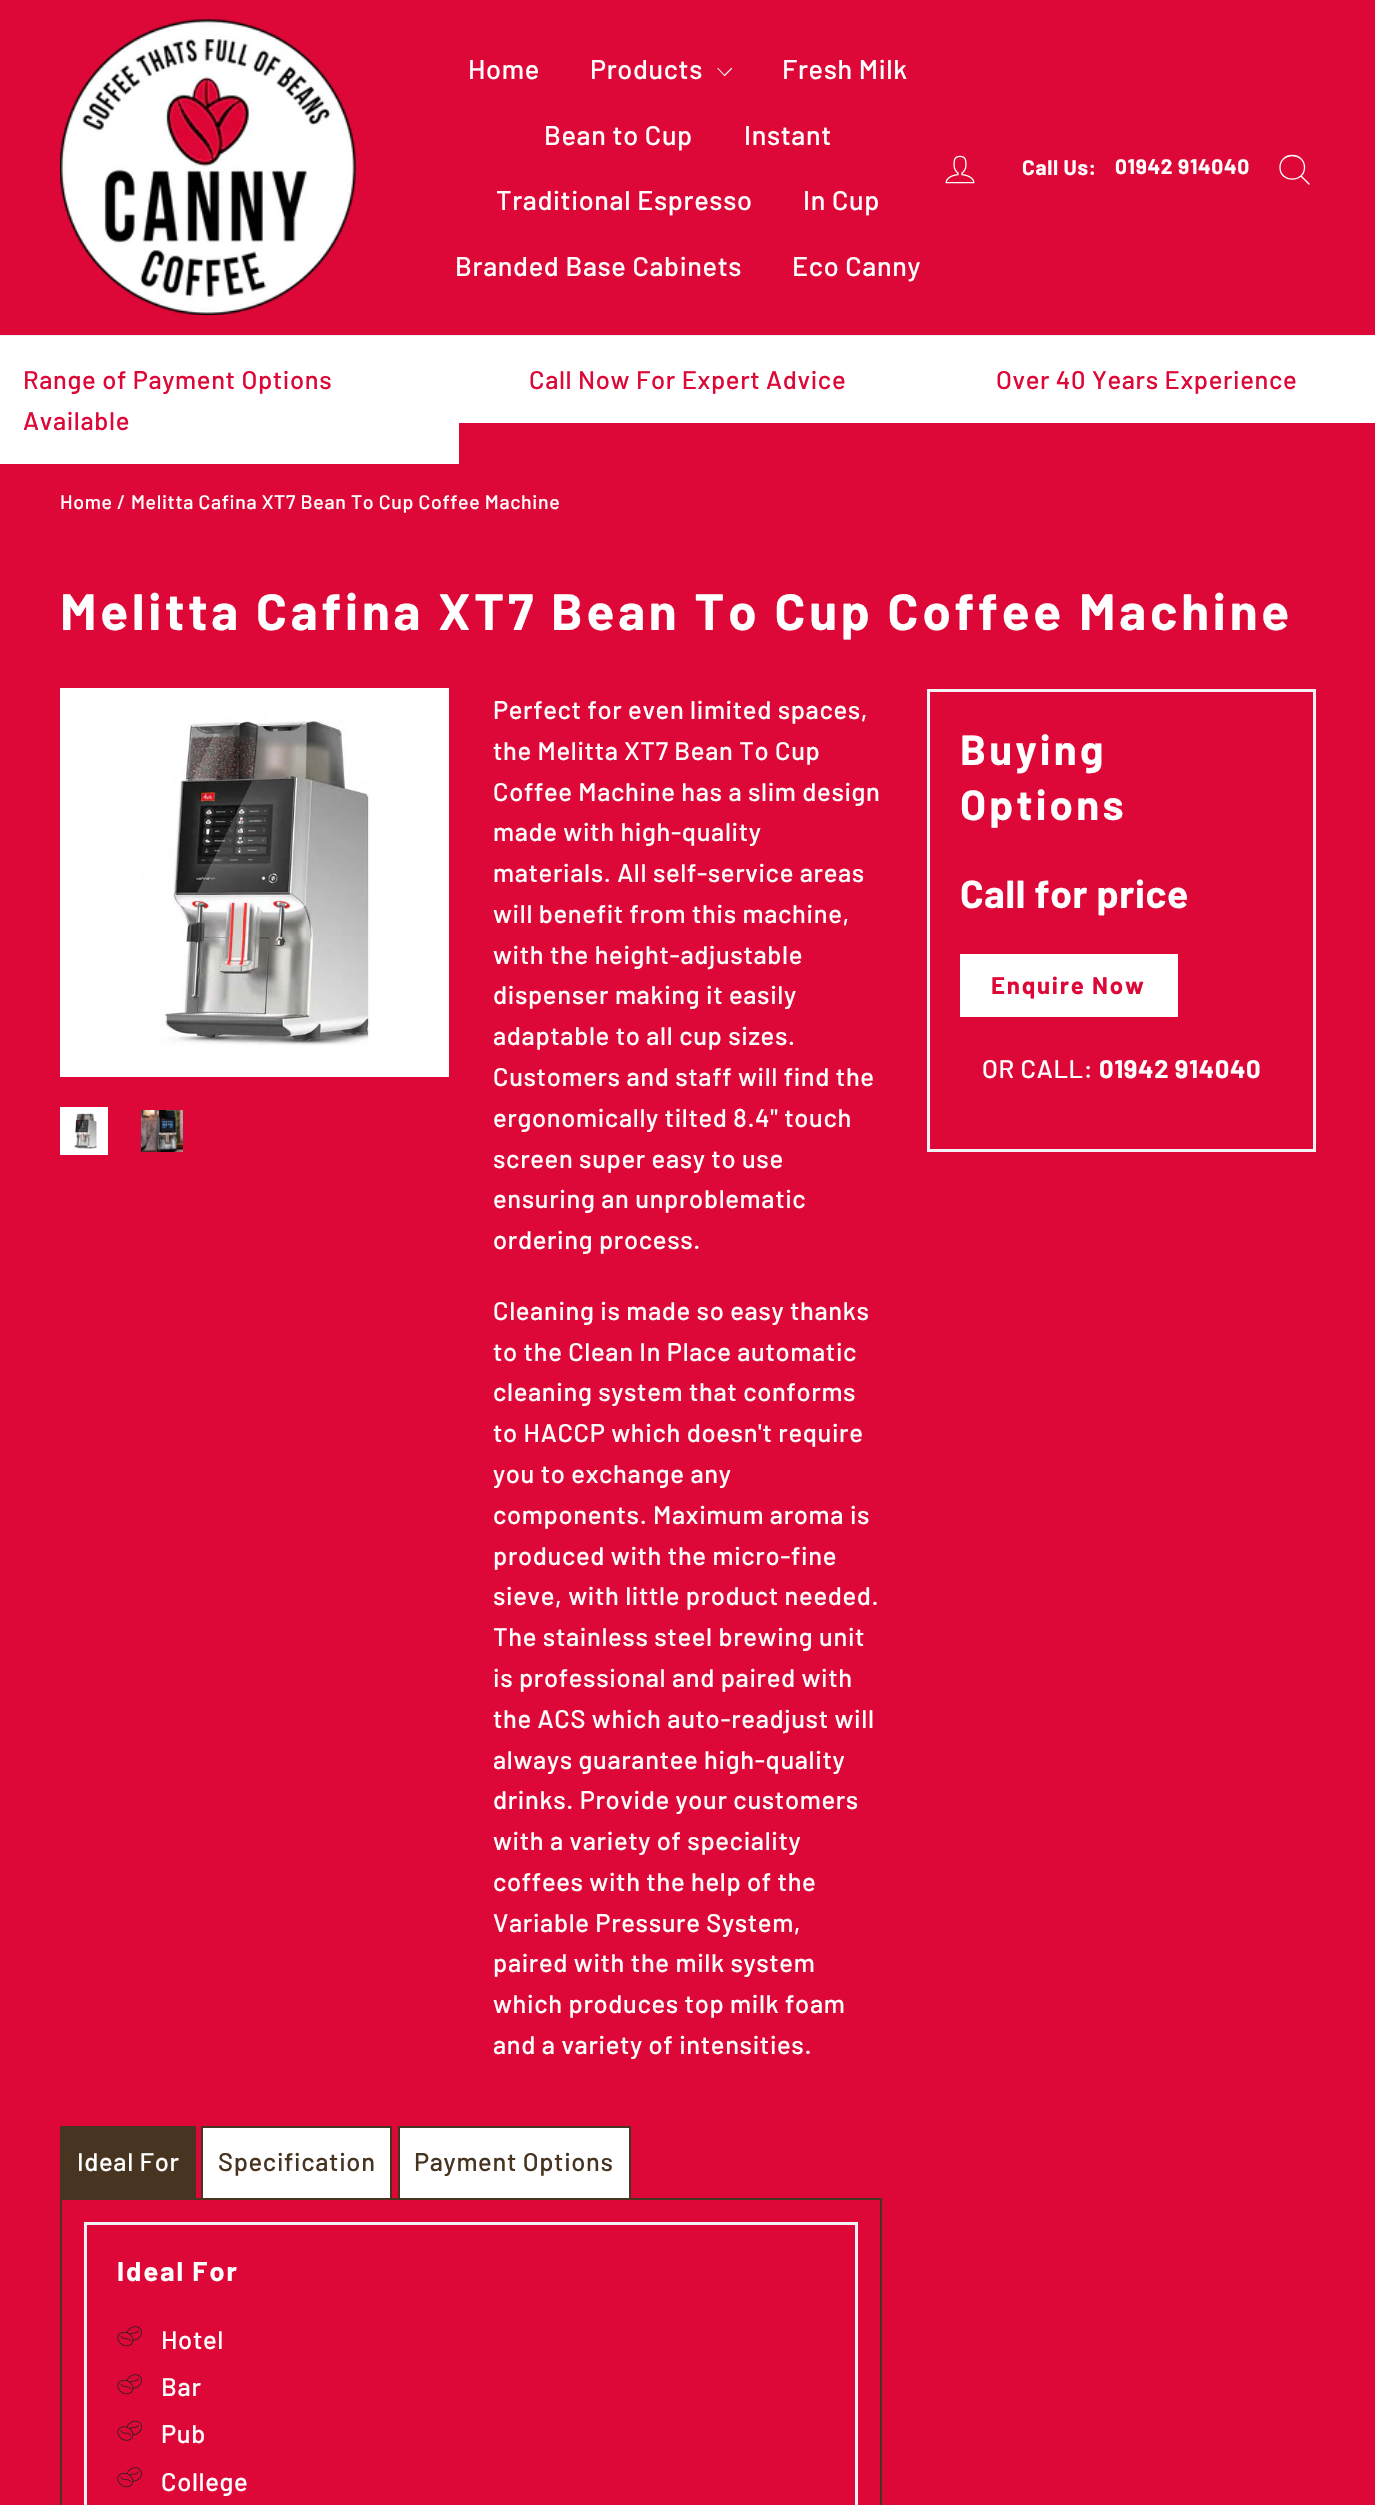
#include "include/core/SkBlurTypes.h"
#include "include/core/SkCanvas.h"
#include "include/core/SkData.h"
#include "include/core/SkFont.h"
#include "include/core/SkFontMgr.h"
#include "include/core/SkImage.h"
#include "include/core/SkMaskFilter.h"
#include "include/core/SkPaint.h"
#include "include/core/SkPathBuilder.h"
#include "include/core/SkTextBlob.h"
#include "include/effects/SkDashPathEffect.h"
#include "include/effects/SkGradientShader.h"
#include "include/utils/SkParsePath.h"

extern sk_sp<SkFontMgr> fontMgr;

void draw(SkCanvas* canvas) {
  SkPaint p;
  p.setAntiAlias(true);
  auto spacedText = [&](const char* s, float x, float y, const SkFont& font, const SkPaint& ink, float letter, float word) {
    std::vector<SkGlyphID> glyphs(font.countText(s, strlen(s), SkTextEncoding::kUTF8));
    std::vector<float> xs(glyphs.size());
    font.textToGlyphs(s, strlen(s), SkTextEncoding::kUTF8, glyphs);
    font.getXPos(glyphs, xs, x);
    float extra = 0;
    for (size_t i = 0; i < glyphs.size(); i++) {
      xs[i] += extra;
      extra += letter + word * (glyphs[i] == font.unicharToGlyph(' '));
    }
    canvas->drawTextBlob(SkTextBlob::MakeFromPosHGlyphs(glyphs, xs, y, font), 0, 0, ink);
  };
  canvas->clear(SkColorSetRGB(221, 8, 55));
  p.setColor(SkColorSetRGB(240, 241, 243));
  canvas->drawRect(SkRect::MakeLTRB(0, 335, 1375, 336), p);
  canvas->drawImageRect(SkImages::DeferredFromEncodedData(SkData::MakeFromFileName("images/1.png")), SkRect::MakeLTRB(60, 19, 356, 315), SkSamplingOptions());
  p.setStyle(SkPaint::kStroke_Style);
  p.setStrokeWidth(1.1f);
  p.setStrokeCap(SkPaint::kRound_Cap);
  p.setStrokeJoin(SkPaint::kRound_Join);
  p.setColor(SK_ColorWHITE);
  canvas->drawPath(SkPathBuilder().moveTo(718, 68.5f).lineTo(724.5f, 75.5f).lineTo(731.5f, 68.5f).detach(), p);
  canvas->drawImageRect(SkImages::DeferredFromEncodedData(SkData::MakeFromFileName("images/2.png")), SkRect::MakeLTRB(945, 155, 975, 184), SkSamplingOptions());
  p.setStrokeWidth(1.3f);
  canvas->drawPath(SkPathBuilder().moveTo(1304.5f, 167.5f).cubicTo(1304.5f, 183, 1280, 183, 1280, 167.5f).cubicTo(1280, 151.5f, 1304.5f, 151.5f, 1304.5f, 167.5f).close().moveTo(1309, 184).lineTo(1301, 176).detach(), p);
  p.setStyle(SkPaint::kFill_Style);
  canvas->drawRect(SkRect::MakeLTRB(0, 336, 459, 464), p);
  canvas->drawRect(SkRect::MakeLTRB(459, 336, 1375, 423), p);
  canvas->drawRect(SkRect::MakeLTRB(60, 1046, 449, 1077), p);
  canvas->drawImageRect(SkImages::DeferredFromEncodedData(SkData::MakeFromFileName("images/3.png")), SkRect::MakeLTRB(60, 688, 449, 1046), SkSamplingOptions());
  p.setStyle(SkPaint::kStroke_Style);
  p.setStrokeWidth(3);
  p.setStrokeCap(SkPaint::kButt_Cap);
  p.setStrokeJoin(SkPaint::kMiter_Join);
  canvas->drawRect(SkRect::MakeLTRB(61.5f, 1108.5f, 106.5f, 1153.5f), p);
  p.setStyle(SkPaint::kFill_Style);
  canvas->drawRect(SkRect::MakeLTRB(63, 1110, 105, 1152), p);
  canvas->drawImageRect(SkImages::DeferredFromEncodedData(SkData::MakeFromFileName("images/4.png")), SkRect::MakeLTRB(74, 1113, 97, 1149), SkSamplingOptions());
  canvas->drawImageRect(SkImages::DeferredFromEncodedData(SkData::MakeFromFileName("images/5.png")), SkRect::MakeLTRB(141, 1110, 183, 1152), SkSamplingOptions());
  p.setStyle(SkPaint::kStroke_Style);
  p.setColor(SkColorSetRGB(240, 241, 243));
  canvas->drawRect(SkRect::MakeLTRB(928.5f, 690.5f, 1314.5f, 1150.5f), p);
  p.setStyle(SkPaint::kFill_Style);
  p.setColor(SK_ColorWHITE);
  canvas->drawRect(SkRect::MakeLTRB(960, 954, 1178, 1017), p);
  p.setColor(SkColorSetRGB(71, 52, 33));
  canvas->drawRect(SkRect::MakeLTRB(60, 2126, 196, 2198), p);
  p.setColor(SK_ColorWHITE);
  canvas->drawRect(SkRect::MakeLTRB(203, 2128, 390, 2198), p);
  p.setColor(SkColorSetRGB(71, 52, 33));
  canvas->drawRect(SkRect::MakeLTRB(201, 2126, 392, 2128), p);
  canvas->drawRect(SkRect::MakeLTRB(390, 2126, 392, 2198), p);
  canvas->drawRect(SkRect::MakeLTRB(201, 2126, 203, 2198), p);
  p.setColor(SK_ColorWHITE);
  canvas->drawRect(SkRect::MakeLTRB(400, 2128, 629, 2198), p);
  p.setColor(SkColorSetRGB(71, 52, 33));
  canvas->drawRect(SkRect::MakeLTRB(398, 2126, 630, 2128), p);
  canvas->drawRect(SkRect::MakeLTRB(629, 2126, 631, 2198), p);
  canvas->drawRect(SkRect::MakeLTRB(398, 2126, 400, 2198), p);
  p.setStyle(SkPaint::kStroke_Style);
  p.setStrokeWidth(2);
  canvas->drawRect(SkRect::MakeLTRB(61, 2199, 881, 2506), p);
  p.setStrokeWidth(3);
  p.setColor(SkColorSetRGB(240, 241, 243));
  canvas->drawRect(SkRect::MakeLTRB(85.5f, 2223.5f, 856.5f, 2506.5f), p);
  canvas->drawImageRect(SkImages::DeferredFromEncodedData(SkData::MakeFromFileName("images/6.png")), SkRect::MakeLTRB(117, 2326, 142, 2347), SkSamplingOptions());
  canvas->drawImageRect(SkImages::DeferredFromEncodedData(SkData::MakeFromFileName("images/6.png")), SkRect::MakeLTRB(117, 2374, 142, 2395), SkSamplingOptions());
  canvas->drawImageRect(SkImages::DeferredFromEncodedData(SkData::MakeFromFileName("images/7.png")), SkRect::MakeLTRB(117, 2420, 142, 2441), SkSamplingOptions());
  canvas->drawImageRect(SkImages::DeferredFromEncodedData(SkData::MakeFromFileName("images/6.png")), SkRect::MakeLTRB(117, 2467, 142, 2488), SkSamplingOptions());
  SkFont font1(fontMgr->matchFamilyStyle("Barlow", SkFontStyle(500, SkFontStyle::kNormal_Width, SkFontStyle::kUpright_Slant)), 27);
  font1.setSubpixel(true);
  p.setStyle(SkPaint::kFill_Style);
  p.setColor(SK_ColorWHITE);
  spacedText("Home", 468, 79, font1, p, 0.65f, 0);
  spacedText("Products", 590, 79, font1, p, 0.65f, 0);
  spacedText("Fresh Milk", 782, 79, font1, p, 0.65f, 0);
  spacedText("Bean to Cup", 544, 145, font1, p, 0.65f, 0);
  spacedText("Instant", 744, 145, font1, p, 0.65f, 0);
  spacedText("Traditional Espresso", 496, 210, font1, p, 0.65f, 0);
  spacedText("In Cup", 803, 210, font1, p, 0.65f, 0);
  spacedText("Branded Base Cabinets", 455, 276, font1, p, 0.65f, 0);
  spacedText("Eco Canny", 792, 276, font1, p, 0.65f, 0);
  SkFont font2(fontMgr->matchFamilyStyle("Barlow", SkFontStyle::Bold()), 21);
  font2.setSubpixel(true);
  spacedText("Call Us:", 1022, 175, font2, p, 0.65f, 0);
  spacedText("01942 914040", 1115, 174, font2, p, 0.65f, 0);
  SkFont font3(fontMgr->matchFamilyStyle("Barlow", SkFontStyle(500, SkFontStyle::kNormal_Width, SkFontStyle::kUpright_Slant)), 25.5f);
  font3.setSubpixel(true);
  p.setColor(SkColorSetRGB(221, 8, 55));
  spacedText("Range of Payment Options", 23, 389, font3, p, 0.65f, 0);
  spacedText("Available", 23, 430, font3, p, 0.65f, 0);
  spacedText("Call Now For Expert Advice", 529, 389, font3, p, 0.65f, 0);
  spacedText("Over 40 Years Experience", 996, 389, font3, p, 0.65f, 0);
  SkFont font4(fontMgr->matchFamilyStyle("Barlow", SkFontStyle(500, SkFontStyle::kNormal_Width, SkFontStyle::kUpright_Slant)), 19.5f);
  font4.setSubpixel(true);
  p.setColor(SK_ColorWHITE);
  spacedText("Home", 60, 509, font4, p, 0.65f, 0);
  p.setColor(SkColorSetRGB(240, 241, 243));
  spacedText("/", 117, 509, font4, p, 0.65f, 0);
  p.setColor(SK_ColorWHITE);
  spacedText("Melitta Cafina XT7 Bean To Cup Coffee Machine", 131, 509, font4, p, 0.65f, 0);
  SkFont font5(fontMgr->matchFamilyStyle("Barlow", SkFontStyle::Bold()), 51);
  font5.setSubpixel(true);
  spacedText("Melitta Cafina XT7 Bean To Cup Coffee Machine", 60, 630, font5, p, 3.8f, 0);
  spacedText("Perfect for even limited spaces,", 493, 719, font3, p, 0.65f, 0);
  spacedText("the Melitta XT7 Bean To Cup", 493, 760, font3, p, 0.65f, 0);
  spacedText("Coffee Machine has a slim design", 493, 801, font3, p, 0.65f, 0);
  spacedText("made with high-quality", 493, 841, font3, p, 0.65f, 0);
  spacedText("materials. All self-service areas", 493, 882, font3, p, 0.65f, 0);
  spacedText("will benefit from this machine,", 493, 923, font3, p, 0.65f, 0);
  spacedText("with the height-adjustable", 493, 964, font3, p, 0.65f, 0);
  spacedText("dispenser making it easily", 493, 1004, font3, p, 0.65f, 0);
  spacedText("adaptable to all cup sizes.", 493, 1045, font3, p, 0.65f, 0);
  spacedText("Customers and staff will find the", 493, 1086, font3, p, 0.65f, 0);
  spacedText("ergonomically tilted 8.4\" touch", 493, 1127, font3, p, 0.65f, 0);
  spacedText("screen super easy to use", 493, 1168, font3, p, 0.65f, 0);
  spacedText("ensuring an unproblematic", 493, 1208, font3, p, 0.65f, 0);
  spacedText("ordering process.", 493, 1249, font3, p, 0.65f, 0);
  spacedText("Cleaning is made so easy thanks", 493, 1320, font3, p, 0.65f, 0);
  spacedText("to the Clean In Place automatic", 493, 1361, font3, p, 0.65f, 0);
  spacedText("cleaning system that conforms", 493, 1401, font3, p, 0.65f, 0);
  spacedText("to HACCP which doesn't require", 493, 1442, font3, p, 0.65f, 0);
  spacedText("you to exchange any", 493, 1483, font3, p, 0.65f, 0);
  spacedText("components. Maximum aroma is", 493, 1524, font3, p, 0.65f, 0);
  spacedText("produced with the micro-fine", 493, 1565, font3, p, 0.65f, 0);
  spacedText("sieve, with little product needed.", 493, 1605, font3, p, 0.65f, 0);
  spacedText("The stainless steel brewing unit", 493, 1646, font3, p, 0.65f, 0);
  spacedText("is professional and paired with", 493, 1687, font3, p, 0.65f, 0);
  spacedText("the ACS which auto-readjust will", 493, 1728, font3, p, 0.65f, 0);
  spacedText("always guarantee high-quality", 493, 1769, font3, p, 0.65f, 0);
  spacedText("drinks. Provide your customers", 493, 1809, font3, p, 0.65f, 0);
  spacedText("with a variety of speciality", 493, 1850, font3, p, 0.65f, 0);
  spacedText("coffees with the help of the", 493, 1891, font3, p, 0.65f, 0);
  spacedText("Variable Pressure System,", 493, 1932, font3, p, 0.65f, 0);
  spacedText("paired with the milk system", 493, 1972, font3, p, 0.65f, 0);
  spacedText("which produces top milk foam", 493, 2013, font3, p, 0.65f, 0);
  spacedText("and a variety of intensities.", 493, 2054, font3, p, 0.65f, 0);
  SkFont font6(fontMgr->matchFamilyStyle("Barlow", SkFontStyle::Bold()), 42);
  font6.setSubpixel(true);
  spacedText("Buying", 960, 765, font6, p, 3.25f, 0);
  spacedText("Options", 960, 820, font6, p, 3.25f, 0);
  SkFont font7(fontMgr->matchFamilyStyle("Barlow", SkFontStyle::Bold()), 39);
  font7.setSubpixel(true);
  spacedText("Call for price", 960, 908, font7, p, 0.65f, 0);
  SkFont font8(fontMgr->matchFamilyStyle("Barlow", SkFontStyle::Bold()), 24);
  font8.setSubpixel(true);
  p.setColor(SkColorSetRGB(221, 8, 55));
  spacedText("Enquire Now", 991, 994, font8, p, 1.75f, 0);
  p.setColor(SK_ColorWHITE);
  spacedText("OR CALL:", 982, 1078, font3, p, 0.65f, 0);
  SkFont font9(fontMgr->matchFamilyStyle("Barlow", SkFontStyle::Bold()), 25.5f);
  font9.setSubpixel(true);
  spacedText("01942 914040", 1099, 1078, font9, p, 0.65f, 0);
  spacedText("Ideal For", 77, 2171, font3, p, 0.65f, 0);
  p.setColor(SkColorSetRGB(71, 52, 33));
  spacedText("Specification", 218, 2171, font3, p, 0.65f, 0);
  spacedText("Payment Options", 414, 2171, font3, p, 0.65f, 0);
  SkFont font10(fontMgr->matchFamilyStyle("Barlow", SkFontStyle::Bold()), 27);
  font10.setSubpixel(true);
  p.setColor(SK_ColorWHITE);
  spacedText("Ideal For", 117, 2281, font10, p, 2, 0);
  spacedText("Hotel", 161, 2349, font3, p, 0.65f, 0);
  spacedText("Bar", 161, 2396, font3, p, 0.65f, 0);
  spacedText("Pub", 161, 2443, font3, p, 0.65f, 0);
  spacedText("College", 161, 2491, font3, p, 0.65f, 0);
}
